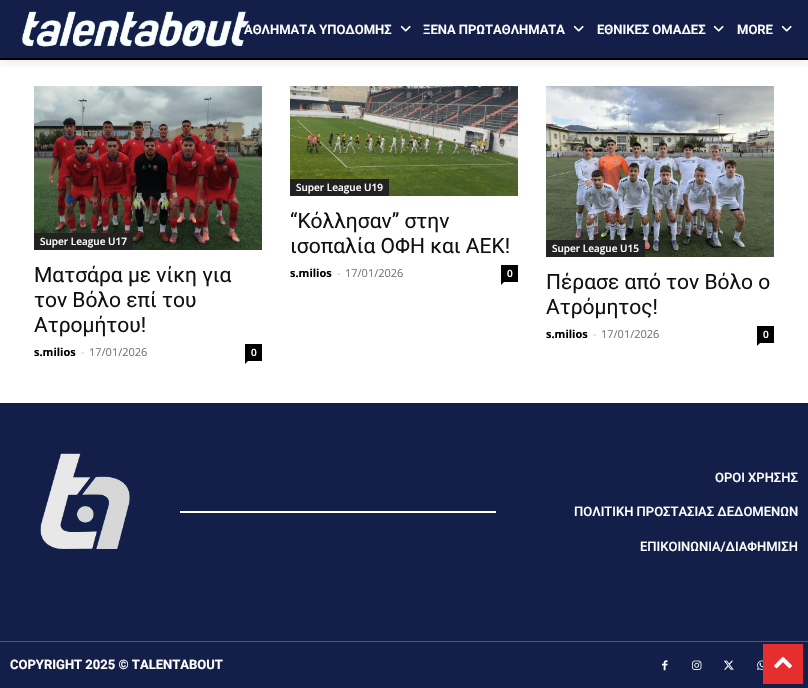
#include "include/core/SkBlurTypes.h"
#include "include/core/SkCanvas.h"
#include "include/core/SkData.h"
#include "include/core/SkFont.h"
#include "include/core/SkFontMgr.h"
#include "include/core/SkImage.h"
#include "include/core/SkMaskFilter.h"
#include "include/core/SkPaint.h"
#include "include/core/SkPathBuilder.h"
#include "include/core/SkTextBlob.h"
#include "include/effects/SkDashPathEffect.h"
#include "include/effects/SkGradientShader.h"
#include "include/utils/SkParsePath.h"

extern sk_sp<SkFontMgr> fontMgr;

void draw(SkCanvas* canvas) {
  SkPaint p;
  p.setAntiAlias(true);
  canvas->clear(SK_ColorWHITE);
  p.setColor(SkColorSetRGB(19, 31, 73));
  canvas->drawRect(SkRect::MakeLTRB(0, 0, 808, 58), p);
  p.setColor(SK_ColorBLACK);
  canvas->drawRect(SkRect::MakeLTRB(0, 58, 808, 60), p);
  canvas->drawImageRect(SkImages::DeferredFromEncodedData(SkData::MakeFromFileName("images/1.png")), SkRect::MakeLTRB(22, 11, 249, 47), SkSamplingOptions());
  canvas->save();
  canvas->clipRect(SkRect::MakeLTRB(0, 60, 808, 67));
  p.setColor(SkColorSetARGB(31, 0, 0, 0));
  p.setMaskFilter(SkMaskFilter::MakeBlur(kNormal_SkBlurStyle, 7.5f));
  canvas->drawRect(SkRect::MakeLTRB(0, 0, 808, 60), p);
  p.setMaskFilter(nullptr);
  canvas->restore();
  canvas->drawImageRect(SkImages::DeferredFromEncodedData(SkData::MakeFromFileName("images/2.png")), SkRect::MakeLTRB(188, 26, 198, 32), SkSamplingOptions());
  canvas->drawImageRect(SkImages::DeferredFromEncodedData(SkData::MakeFromFileName("images/3.png")), SkRect::MakeLTRB(400, 25, 411, 32), SkSamplingOptions());
  canvas->drawImageRect(SkImages::DeferredFromEncodedData(SkData::MakeFromFileName("images/3.png")), SkRect::MakeLTRB(573, 25, 584, 32), SkSamplingOptions());
  canvas->drawImageRect(SkImages::DeferredFromEncodedData(SkData::MakeFromFileName("images/3.png")), SkRect::MakeLTRB(713, 25, 724, 32), SkSamplingOptions());
  canvas->drawImageRect(SkImages::DeferredFromEncodedData(SkData::MakeFromFileName("images/3.png")), SkRect::MakeLTRB(781, 25, 792, 32), SkSamplingOptions());
  canvas->drawImageRect(SkImages::DeferredFromEncodedData(SkData::MakeFromFileName("images/4.png")), SkRect::MakeLTRB(34, 86, 262, 250), SkSamplingOptions());
  p.setColor(SkColorSetRGB(34, 34, 34));
  canvas->drawRect(SkRect::MakeLTRB(34, 233, 133, 250), p);
  p.setColor(SK_ColorBLACK);
  canvas->drawRect(SkRect::MakeLTRB(245, 344, 262, 361), p);
  canvas->drawPath(SkPathBuilder().moveTo(245, 361).lineTo(248, 361).lineTo(245, 364).close().detach(), p);
  canvas->drawImageRect(SkImages::DeferredFromEncodedData(SkData::MakeFromFileName("images/5.png")), SkRect::MakeLTRB(290, 86, 518, 196), SkSamplingOptions());
  p.setColor(SkColorSetRGB(34, 34, 34));
  canvas->drawRect(SkRect::MakeLTRB(290, 179, 389, 196), p);
  p.setColor(SK_ColorBLACK);
  canvas->drawRect(SkRect::MakeLTRB(501, 265, 518, 282), p);
  canvas->drawPath(SkPathBuilder().moveTo(501, 282).lineTo(504, 282).lineTo(501, 285).close().detach(), p);
  canvas->drawImageRect(SkImages::DeferredFromEncodedData(SkData::MakeFromFileName("images/6.png")), SkRect::MakeLTRB(546, 86, 774, 257), SkSamplingOptions());
  p.setColor(SkColorSetRGB(34, 34, 34));
  canvas->drawRect(SkRect::MakeLTRB(546, 240, 645, 257), p);
  p.setColor(SK_ColorBLACK);
  canvas->drawRect(SkRect::MakeLTRB(757, 326, 774, 343), p);
  canvas->drawPath(SkPathBuilder().moveTo(757, 343).lineTo(760, 343).lineTo(757, 346).close().detach(), p);
  p.setColor(SkColorSetRGB(19, 31, 73));
  canvas->drawRect(SkRect::MakeLTRB(0, 403, 808, 688), p);
  canvas->drawImageRect(SkImages::DeferredFromEncodedData(SkData::MakeFromFileName("images/7.png")), SkRect::MakeLTRB(40, 453, 130, 549), SkSamplingOptions());
  p.setColor(SK_ColorWHITE);
  canvas->drawRect(SkRect::MakeLTRB(180, 511, 496, 513), p);
  p.setColor(SkColorSetRGB(78, 87, 119));
  canvas->drawRect(SkRect::MakeLTRB(0, 641, 808, 642), p);
  canvas->drawImageRect(SkImages::DeferredFromEncodedData(SkData::MakeFromFileName("images/8.png")), SkRect::MakeLTRB(662, 660, 668, 671), SkSamplingOptions());
  canvas->drawImageRect(SkImages::DeferredFromEncodedData(SkData::MakeFromFileName("images/9.png")), SkRect::MakeLTRB(692, 660, 702, 670), SkSamplingOptions());
  canvas->drawImageRect(SkImages::DeferredFromEncodedData(SkData::MakeFromFileName("images/10.png")), SkRect::MakeLTRB(724, 660, 734, 670), SkSamplingOptions());
  canvas->drawImageRect(SkImages::DeferredFromEncodedData(SkData::MakeFromFileName("images/11.png")), SkRect::MakeLTRB(757, 660, 763, 670), SkSamplingOptions());
  p.setColor(SkColorSetRGB(229, 46, 46));
  canvas->drawRect(SkRect::MakeLTRB(763, 644, 803, 684), p);
  canvas->drawImageRect(SkImages::DeferredFromEncodedData(SkData::MakeFromFileName("images/12.png")), SkRect::MakeLTRB(774, 656, 792, 669), SkSamplingOptions());
  SkFont font1(fontMgr->matchFamilyStyle("Roboto", SkFontStyle(600, SkFontStyle::kNormal_Width, SkFontStyle::kUpright_Slant)), 13);
  font1.setSubpixel(true);
  p.setColor(SK_ColorWHITE);
  canvas->drawString("ΑΘΛΗΜΑΤΑ YΠΟΔΟΜΗΣ", 244, 34, font1, p);
  canvas->drawString("ΞΕΝΑ ΠΡΩΤΑΘΛΗΜΑΤΑ", 423, 34, font1, p);
  canvas->drawString("ΕΘΝΙΚΕΣ ΟΜΑΔΕΣ", 597, 34, font1, p);
  canvas->drawString("MORE", 737, 34, font1, p);
  SkFont font2(fontMgr->matchFamilyStyle("Open Sans", SkFontStyle(600, SkFontStyle::kNormal_Width, SkFontStyle::kUpright_Slant)), 10);
  font2.setSubpixel(true);
  canvas->drawString("Super League U17", 40, 245, font2, p);
  SkFont font3(fontMgr->matchFamilyStyle("Roboto", SkFontStyle::Normal()), 21);
  font3.setSubpixel(true);
  p.setColor(SkColorSetRGB(17, 17, 17));
  canvas->drawString("Ματσάρα με νίκη για", 34, 282, font3, p);
  canvas->drawString("τον Βόλο επί του", 34, 307, font3, p);
  canvas->drawString("Ατρομήτου!", 34, 332, font3, p);
  SkFont font4(fontMgr->matchFamilyStyle("Open Sans", SkFontStyle::Bold()), 11);
  font4.setSubpixel(true);
  p.setColor(SK_ColorBLACK);
  canvas->drawString("s.milios", 34, 356, font4, p);
  SkFont font5(fontMgr->matchFamilyStyle("Open Sans", SkFontStyle::Normal()), 11);
  font5.setSubpixel(true);
  p.setColor(SkColorSetRGB(204, 204, 204));
  canvas->drawString("-", 81, 356, font5, p);
  p.setColor(SkColorSetRGB(118, 118, 118));
  canvas->drawString("17/01/2026", 89, 356, font5, p);
  p.setColor(SK_ColorWHITE);
  canvas->drawString("0", 251, 356, font2, p);
  canvas->drawString("Super League U19", 296, 191, font2, p);
  p.setColor(SkColorSetRGB(17, 17, 17));
  canvas->drawString("“Κόλλησαν” στην", 290, 228, font3, p);
  canvas->drawString("ισοπαλία ΟΦΗ και ΑΕΚ!", 290, 253, font3, p);
  p.setColor(SK_ColorBLACK);
  canvas->drawString("s.milios", 290, 277, font4, p);
  p.setColor(SkColorSetRGB(204, 204, 204));
  canvas->drawString("-", 337, 277, font5, p);
  p.setColor(SkColorSetRGB(118, 118, 118));
  canvas->drawString("17/01/2026", 345, 277, font5, p);
  p.setColor(SK_ColorWHITE);
  canvas->drawString("0", 507, 277, font2, p);
  canvas->drawString("Super League U15", 552, 252, font2, p);
  p.setColor(SkColorSetRGB(17, 17, 17));
  canvas->drawString("Πέρασε από τον Βόλο ο", 546, 289, font3, p);
  canvas->drawString("Ατρόμητος!", 546, 314, font3, p);
  p.setColor(SK_ColorBLACK);
  canvas->drawString("s.milios", 546, 338, font4, p);
  p.setColor(SkColorSetRGB(204, 204, 204));
  canvas->drawString("-", 593, 338, font5, p);
  p.setColor(SkColorSetRGB(118, 118, 118));
  canvas->drawString("17/01/2026", 601, 338, font5, p);
  p.setColor(SK_ColorWHITE);
  canvas->drawString("0", 763, 338, font2, p);
  SkFont font6(fontMgr->matchFamilyStyle("Roboto", SkFontStyle(500, SkFontStyle::kNormal_Width, SkFontStyle::kUpright_Slant)), 13);
  font6.setSubpixel(true);
  canvas->drawString("ΟΡΟΙ ΧΡΗΣΗΣ", 715, 482, font6, p);
  canvas->drawString("ΠΟΛΙΤΙΚΗ ΠΡΟΣΤΑΣΙΑΣ ΔΕΔΟΜΕΝΩΝ", 574, 516, font6, p);
  canvas->drawString("ΕΠΙΚΟΙΝΩΝΙΑ/ΔΙΑΦΗΜΙΣΗ", 640, 551, font6, p);
  SkFont font7(fontMgr->matchFamilyStyle("Roboto", SkFontStyle::Bold()), 13);
  font7.setSubpixel(true);
  canvas->drawString("COPYRIGHT 2025 © TALENTABOUT", 10, 669, font7, p);
}
